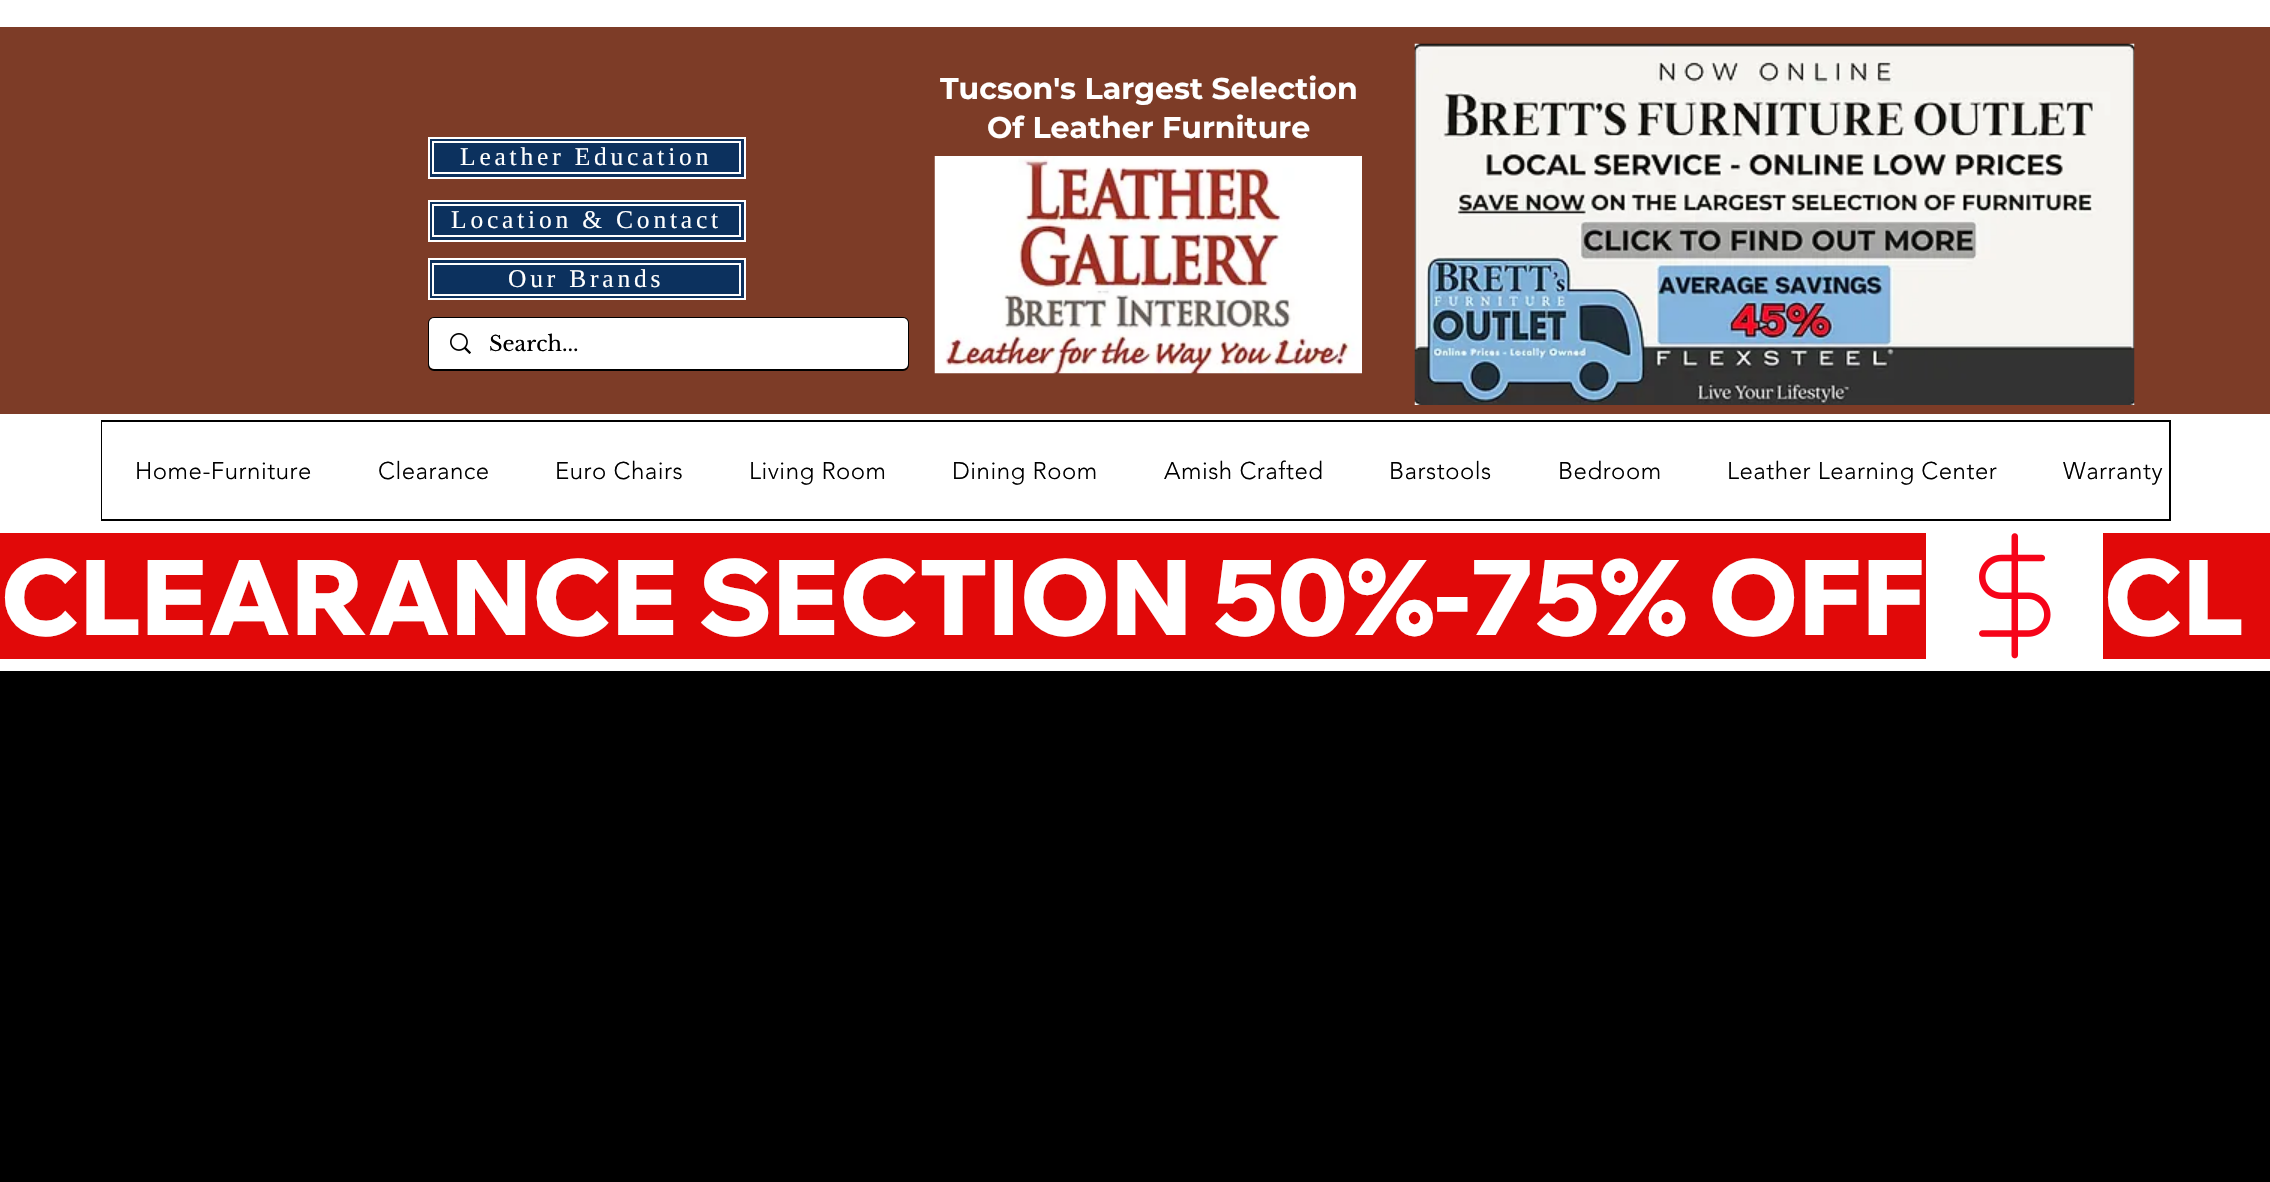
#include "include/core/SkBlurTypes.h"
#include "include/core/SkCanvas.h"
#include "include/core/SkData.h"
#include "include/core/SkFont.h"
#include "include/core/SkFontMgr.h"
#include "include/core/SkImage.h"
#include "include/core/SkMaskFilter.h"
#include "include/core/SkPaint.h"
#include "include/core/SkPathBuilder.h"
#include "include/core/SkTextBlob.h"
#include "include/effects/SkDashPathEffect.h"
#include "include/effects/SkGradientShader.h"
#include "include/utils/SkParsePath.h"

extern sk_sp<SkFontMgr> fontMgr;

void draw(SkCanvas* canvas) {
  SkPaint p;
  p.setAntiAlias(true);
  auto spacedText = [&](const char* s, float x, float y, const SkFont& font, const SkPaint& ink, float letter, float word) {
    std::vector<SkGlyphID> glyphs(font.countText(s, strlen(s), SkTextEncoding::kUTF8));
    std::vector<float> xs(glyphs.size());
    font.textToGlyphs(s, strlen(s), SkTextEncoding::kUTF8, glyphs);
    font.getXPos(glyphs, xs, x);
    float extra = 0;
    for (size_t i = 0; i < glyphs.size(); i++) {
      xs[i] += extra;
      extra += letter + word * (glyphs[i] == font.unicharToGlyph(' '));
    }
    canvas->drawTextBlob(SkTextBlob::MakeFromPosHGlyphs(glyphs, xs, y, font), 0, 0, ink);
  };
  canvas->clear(SK_ColorWHITE);
  p.setColor(SkColorSetRGB(125, 60, 39));
  canvas->drawRect(SkRect::MakeLTRB(0, 27, 2270, 414), p);
  canvas->drawImageRect(SkImages::DeferredFromEncodedData(SkData::MakeFromFileName("images/1.png")), SkRect::MakeLTRB(1414, 43, 2135, 405), SkSamplingOptions());
  p.setColor(SkColorSetRGB(12, 49, 94));
  canvas->drawRect(SkRect::MakeLTRB(429, 138, 745, 178), p);
  p.setStyle(SkPaint::kStroke_Style);
  p.setStrokeWidth(2);
  p.setColor(SK_ColorWHITE);
  canvas->drawRect(SkRect::MakeLTRB(429, 138, 745, 178), p);
  canvas->drawRect(SkRect::MakeLTRB(433, 142, 740, 173), p);
  canvas->drawImageRect(SkImages::DeferredFromEncodedData(SkData::MakeFromFileName("images/2.png")), SkRect::MakeLTRB(934, 156, 1362, 374), SkSamplingOptions());
  p.setStyle(SkPaint::kFill_Style);
  p.setColor(SkColorSetRGB(12, 49, 94));
  canvas->drawRect(SkRect::MakeLTRB(429, 201, 745, 241), p);
  p.setStyle(SkPaint::kStroke_Style);
  p.setColor(SK_ColorWHITE);
  canvas->drawRect(SkRect::MakeLTRB(429, 201, 745, 241), p);
  canvas->drawRect(SkRect::MakeLTRB(433, 205, 740, 236), p);
  p.setStyle(SkPaint::kFill_Style);
  p.setColor(SkColorSetRGB(12, 49, 94));
  canvas->drawRect(SkRect::MakeLTRB(429, 259, 745, 299), p);
  p.setStyle(SkPaint::kStroke_Style);
  p.setColor(SK_ColorWHITE);
  canvas->drawRect(SkRect::MakeLTRB(429, 259, 745, 299), p);
  canvas->drawRect(SkRect::MakeLTRB(433, 264, 740, 295), p);
  p.setColor(SK_ColorBLACK);
  canvas->drawRoundRect(SkRect::MakeLTRB(429, 318, 908, 370), 5, 5, p);
  p.setStyle(SkPaint::kFill_Style);
  p.setColor(SK_ColorWHITE);
  canvas->drawRoundRect(SkRect::MakeLTRB(429, 318, 908, 369), 5, 5, p);
  canvas->drawImageRect(SkImages::DeferredFromEncodedData(SkData::MakeFromFileName("images/3.png")), SkRect::MakeLTRB(450, 333, 471, 354), SkSamplingOptions());
  p.setStyle(SkPaint::kStroke_Style);
  p.setColor(SK_ColorBLACK);
  canvas->drawRect(SkRect::MakeLTRB(102, 421, 2170, 520), p);
  p.setStyle(SkPaint::kFill_Style);
  p.setColor(SK_ColorWHITE);
  canvas->drawRect(SkRect::MakeLTRB(102, 422, 103, 519), p);
  p.setColor(SkColorSetRGB(225, 9, 9));
  canvas->drawRect(SkRect::MakeLTRB(0, 533, 1926, 659), p);
  canvas->drawImageRect(SkImages::DeferredFromEncodedData(SkData::MakeFromFileName("images/4.png")), SkRect::MakeLTRB(1979, 533, 2051, 659), SkSamplingOptions());
  canvas->drawRect(SkRect::MakeLTRB(2103, 533, 2270, 659), p);
  p.setColor(SK_ColorBLACK);
  canvas->drawRect(SkRect::MakeLTRB(0, 671, 2270, 1182), p);
  SkFont font1(fontMgr->matchFamilyStyle("Montserrat", SkFontStyle::Bold()), 30);
  font1.setSubpixel(true);
  p.setColor(SK_ColorWHITE);
  canvas->drawString("Tucson's Largest Selection", 940, 99, font1, p);
  canvas->drawString("Of Leather Furniture", 987, 138, font1, p);
  SkFont font2(fontMgr->matchFamilyStyle("Liberation Serif", SkFontStyle::Normal()), 25.5f);
  font2.setSubpixel(true);
  spacedText("Leather Education", 460, 165, font2, p, 3.8f, 0);
  spacedText("Location & Contact", 451, 228, font2, p, 3.8f, 0);
  spacedText("Our Brands", 508, 287, font2, p, 3.8f, 0);
  SkFont font3(fontMgr->matchFamilyStyle("Libre Baskerville", SkFontStyle::Normal()), 21);
  font3.setSubpixel(true);
  p.setColor(SK_ColorBLACK);
  canvas->drawString("Search...", 489, 351, font3, p);
  SkFont font4(fontMgr->matchFamilyStyle("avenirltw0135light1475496", SkFontStyle(300, SkFontStyle::kNormal_Width, SkFontStyle::kUpright_Slant)), 24);
  font4.setSubpixel(true);
  spacedText("Home-Furniture", 135, 479, font4, p, 0.5f, 0);
  spacedText("Clearance", 378, 479, font4, p, 0.5f, 0);
  spacedText("Euro Chairs", 555, 479, font4, p, 0.5f, 0);
  spacedText("Living Room", 749, 479, font4, p, 0.5f, 0);
  spacedText("Dining Room", 952, 479, font4, p, 0.5f, 0);
  spacedText("Amish Crafted", 1164, 479, font4, p, 0.5f, 0);
  spacedText("Barstools", 1389, 479, font4, p, 0.5f, 0);
  spacedText("Bedroom", 1558, 479, font4, p, 0.5f, 0);
  spacedText("Leather Learning Center", 1727, 479, font4, p, 0.5f, 0);
  spacedText("Warranty", 2063, 479, font4, p, 0.5f, 0);
  SkFont font5(fontMgr->matchFamilyStyle("Wix Madefor Display", SkFontStyle(800, SkFontStyle::kNormal_Width, SkFontStyle::kUpright_Slant)), 105);
  font5.setSubpixel(true);
  p.setColor(SK_ColorWHITE);
  canvas->drawString("CLEARANCE SECTION 50%-75% OFF", 0, 635, font5, p);
  canvas->drawString("CL", 2103, 635, font5, p);
}
